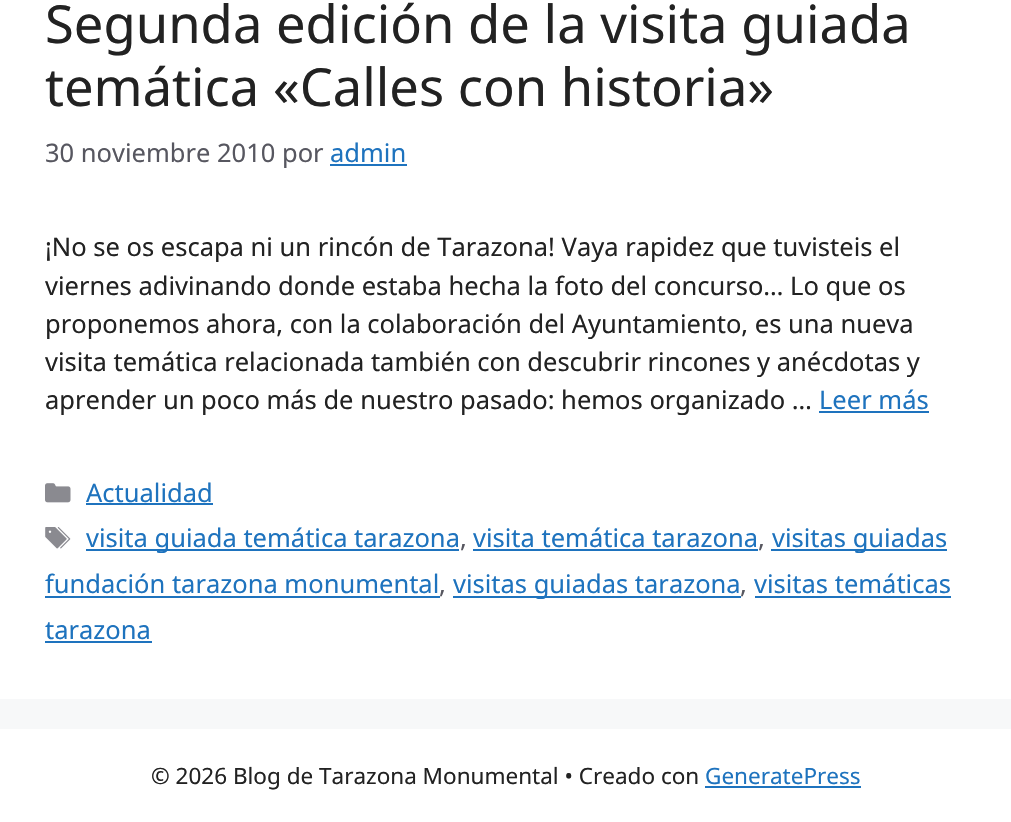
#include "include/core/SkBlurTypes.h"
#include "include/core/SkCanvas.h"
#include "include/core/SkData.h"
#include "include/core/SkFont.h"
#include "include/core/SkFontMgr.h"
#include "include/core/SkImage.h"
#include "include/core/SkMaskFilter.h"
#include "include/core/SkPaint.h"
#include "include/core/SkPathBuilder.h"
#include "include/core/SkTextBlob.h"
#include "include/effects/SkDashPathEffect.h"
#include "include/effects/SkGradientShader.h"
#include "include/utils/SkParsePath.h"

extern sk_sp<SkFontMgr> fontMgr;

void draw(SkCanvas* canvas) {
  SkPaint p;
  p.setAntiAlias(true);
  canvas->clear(SkColorSetRGB(247, 248, 249));
  p.setColor(SK_ColorWHITE);
  canvas->drawRect(SkRect::MakeLTRB(0, 0, 1011, 699), p);
  p.setColor(SkColorSetRGB(30, 115, 190));
  canvas->drawRect(SkRect::MakeLTRB(330, 164, 407, 166), p);
  canvas->drawRect(SkRect::MakeLTRB(819, 411, 929, 413), p);
  canvas->drawImageRect(SkImages::DeferredFromEncodedData(SkData::MakeFromFileName("images/1.png")), SkRect::MakeLTRB(45, 483, 71, 503), SkSamplingOptions());
  canvas->drawRect(SkRect::MakeLTRB(86, 503, 213, 505), p);
  canvas->drawImageRect(SkImages::DeferredFromEncodedData(SkData::MakeFromFileName("images/2.png")), SkRect::MakeLTRB(45, 527, 71, 549), SkSamplingOptions());
  canvas->drawRect(SkRect::MakeLTRB(86, 549, 459, 551), p);
  canvas->drawRect(SkRect::MakeLTRB(473, 549, 758, 551), p);
  canvas->drawRect(SkRect::MakeLTRB(771, 549, 947, 551), p);
  canvas->drawRect(SkRect::MakeLTRB(45, 596, 440, 598), p);
  canvas->drawRect(SkRect::MakeLTRB(453, 596, 741, 598), p);
  canvas->drawRect(SkRect::MakeLTRB(755, 596, 951, 598), p);
  canvas->drawRect(SkRect::MakeLTRB(45, 641, 152, 643), p);
  p.setColor(SK_ColorWHITE);
  canvas->drawRect(SkRect::MakeLTRB(0, 729, 1011, 822), p);
  p.setColor(SkColorSetRGB(30, 115, 190));
  canvas->drawRect(SkRect::MakeLTRB(705, 786, 861, 788), p);
  SkFont font1(fontMgr->matchFamilyStyle("Noto Sans", SkFontStyle::Normal()), 52.5f);
  font1.setSubpixel(true);
  p.setColor(SkColorSetRGB(34, 34, 34));
  canvas->drawString("Segunda edición de la visita guiada", 45, 43, font1, p);
  canvas->drawString("temática «Calles con historia»", 45, 106, font1, p);
  SkFont font2(fontMgr->matchFamilyStyle("Noto Sans", SkFontStyle::Normal()), 25.5f);
  font2.setSubpixel(true);
  p.setColor(SkColorSetRGB(87, 87, 96));
  canvas->drawString("30 noviembre 2010 por", 45, 162, font2, p);
  p.setColor(SkColorSetRGB(30, 115, 190));
  canvas->drawString("admin", 330, 162, font2, p);
  p.setColor(SkColorSetRGB(34, 34, 34));
  canvas->drawString("¡No se os escapa ni un rincón de Tarazona! Vaya rapidez que tuvisteis el", 45, 256, font2, p);
  canvas->drawString("viernes adivinando donde estaba hecha la foto del concurso… Lo que os", 45, 295, font2, p);
  canvas->drawString("proponemos ahora, con la colaboración del Ayuntamiento, es una nueva", 45, 333, font2, p);
  canvas->drawString("visita temática relacionada también con descubrir rincones y anécdotas y", 45, 371, font2, p);
  canvas->drawString("aprender un poco más de nuestro pasado: hemos organizado …", 45, 409, font2, p);
  p.setColor(SkColorSetRGB(30, 115, 190));
  canvas->drawString("Leer más", 819, 409, font2, p);
  canvas->drawString("Actualidad", 86, 502, font2, p);
  canvas->drawString("visita guiada temática tarazona", 86, 547, font2, p);
  p.setColor(SkColorSetRGB(87, 87, 96));
  canvas->drawString(",", 460, 547, font2, p);
  p.setColor(SkColorSetRGB(30, 115, 190));
  canvas->drawString("visita temática tarazona", 473, 547, font2, p);
  p.setColor(SkColorSetRGB(87, 87, 96));
  canvas->drawString(",", 758, 547, font2, p);
  p.setColor(SkColorSetRGB(30, 115, 190));
  canvas->drawString("visitas guiadas", 772, 547, font2, p);
  canvas->drawString("fundación tarazona monumental", 45, 593, font2, p);
  p.setColor(SkColorSetRGB(87, 87, 96));
  canvas->drawString(",", 439, 593, font2, p);
  p.setColor(SkColorSetRGB(30, 115, 190));
  canvas->drawString("visitas guiadas tarazona", 453, 593, font2, p);
  p.setColor(SkColorSetRGB(87, 87, 96));
  canvas->drawString(",", 740, 593, font2, p);
  p.setColor(SkColorSetRGB(30, 115, 190));
  canvas->drawString("visitas temáticas", 754, 593, font2, p);
  canvas->drawString("tarazona", 45, 639, font2, p);
  SkFont font3(fontMgr->matchFamilyStyle("Noto Sans", SkFontStyle::Normal()), 22.5f);
  font3.setSubpixel(true);
  p.setColor(SkColorSetRGB(34, 34, 34));
  canvas->drawString("© 2026 Blog de Tarazona Monumental • Creado con", 151, 784, font3, p);
  p.setColor(SkColorSetRGB(30, 115, 190));
  canvas->drawString("GeneratePress", 705, 784, font3, p);
}
